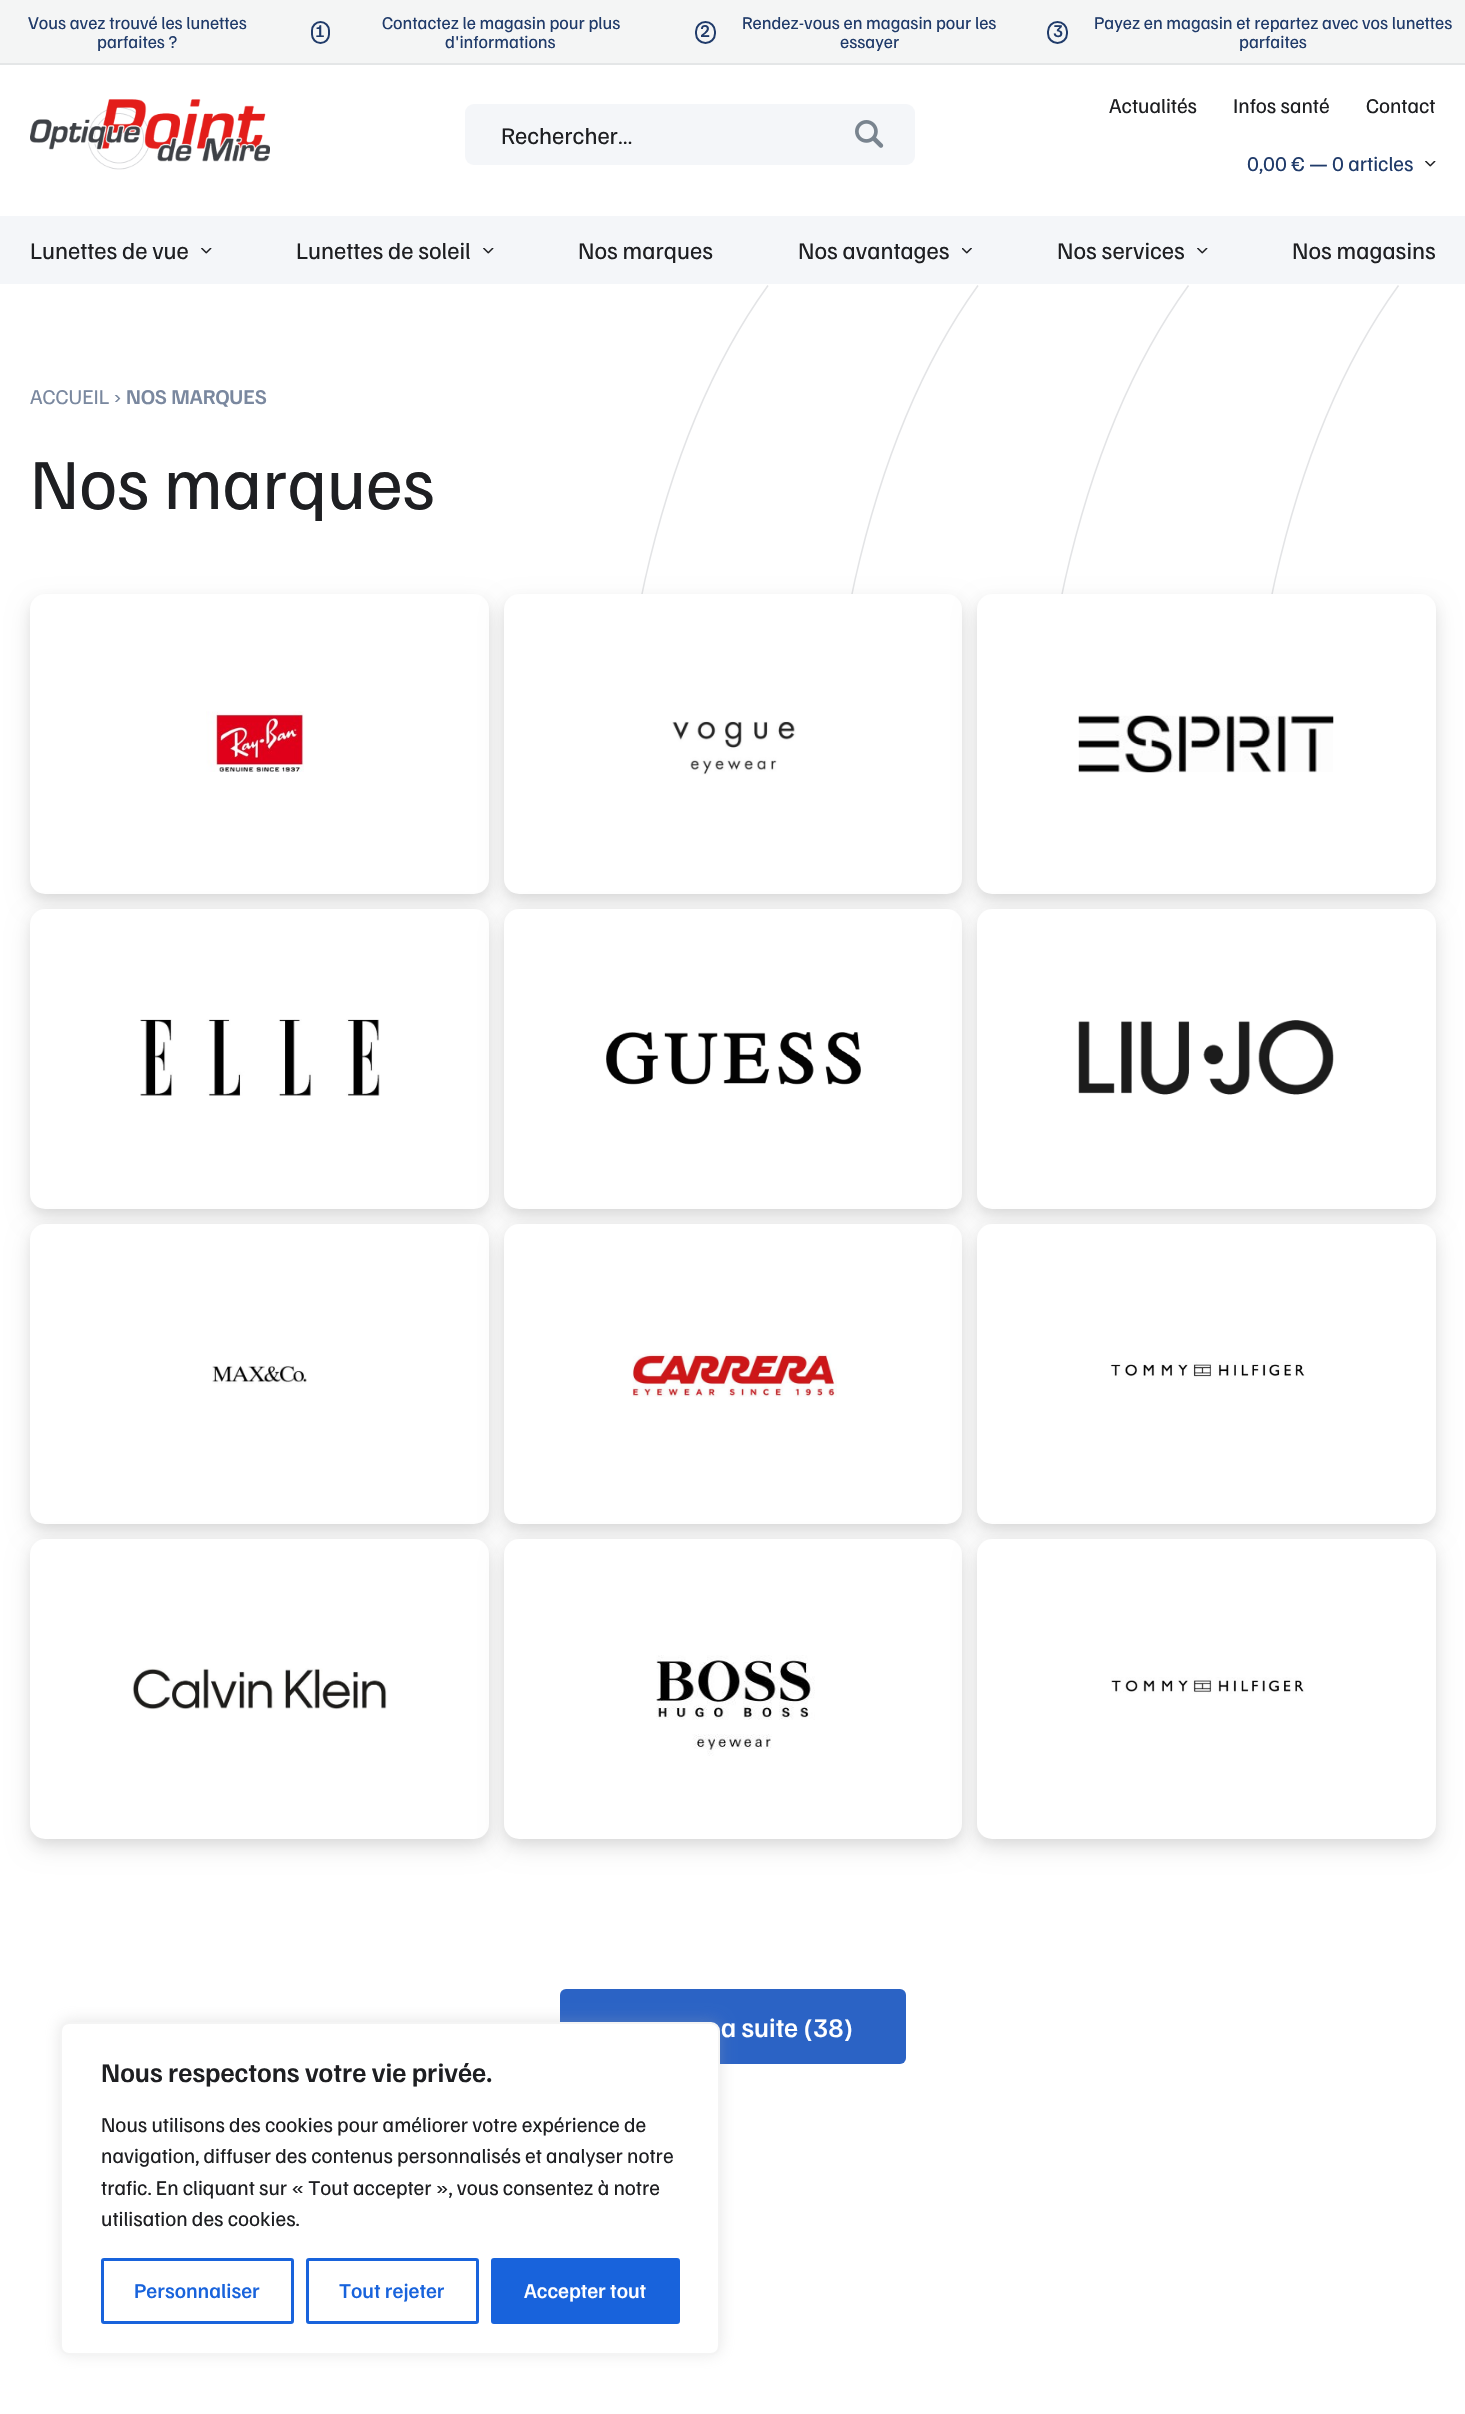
#include "include/core/SkBlurTypes.h"
#include "include/core/SkCanvas.h"
#include "include/core/SkData.h"
#include "include/core/SkFont.h"
#include "include/core/SkFontMgr.h"
#include "include/core/SkImage.h"
#include "include/core/SkMaskFilter.h"
#include "include/core/SkPaint.h"
#include "include/core/SkPathBuilder.h"
#include "include/core/SkTextBlob.h"
#include "include/effects/SkDashPathEffect.h"
#include "include/effects/SkGradientShader.h"
#include "include/utils/SkParsePath.h"

extern sk_sp<SkFontMgr> fontMgr;

void draw(SkCanvas* canvas) {
  SkPaint p;
  p.setAntiAlias(true);
  canvas->clear(SK_ColorWHITE);
  p.setColor(SkColorSetRGB(244, 245, 245));
  canvas->drawRect(SkRect::MakeLTRB(0, 0, 1465, 63), p);
  p.setColor(SkColorSetRGB(228, 230, 231));
  canvas->drawRect(SkRect::MakeLTRB(0, 63, 1465, 65), p);
  p.setStyle(SkPaint::kStroke_Style);
  p.setStrokeWidth(2);
  p.setColor(SkColorSetRGB(32, 59, 106));
  canvas->drawRoundRect(SkRect::MakeLTRB(312, 22, 329, 43), 8.5f, 8.5f, p);
  canvas->drawRoundRect(SkRect::MakeLTRB(696, 22, 715, 43), 9.5f, 9.5f, p);
  canvas->drawRoundRect(SkRect::MakeLTRB(1048, 22, 1067, 43), 9.5f, 9.5f, p);
  canvas->drawImageRect(SkImages::DeferredFromEncodedData(SkData::MakeFromFileName("images/1.png")), SkRect::MakeLTRB(30, 99, 270, 170), SkSamplingOptions());
  p.setStyle(SkPaint::kFill_Style);
  p.setColor(SkColorSetRGB(244, 246, 249));
  canvas->drawRoundRect(SkRect::MakeLTRB(465, 104, 915, 165), 9, 9, p);
  canvas->drawImageRect(SkImages::DeferredFromEncodedData(SkData::MakeFromFileName("images/2.png")), SkRect::MakeLTRB(855, 120, 884, 148), SkSamplingOptions());
  canvas->drawImageRect(SkImages::DeferredFromEncodedData(SkData::MakeFromFileName("images/3.png")), SkRect::MakeLTRB(1425, 161, 1436, 167), SkSamplingOptions());
  canvas->drawRect(SkRect::MakeLTRB(0, 216, 1465, 284), p);
  canvas->drawImageRect(SkImages::DeferredFromEncodedData(SkData::MakeFromFileName("images/4.png")), SkRect::MakeLTRB(201, 248, 212, 254), SkSamplingOptions());
  canvas->drawImageRect(SkImages::DeferredFromEncodedData(SkData::MakeFromFileName("images/4.png")), SkRect::MakeLTRB(483, 248, 494, 254), SkSamplingOptions());
  canvas->drawImageRect(SkImages::DeferredFromEncodedData(SkData::MakeFromFileName("images/5.png")), SkRect::MakeLTRB(962, 248, 972, 254), SkSamplingOptions());
  canvas->drawImageRect(SkImages::DeferredFromEncodedData(SkData::MakeFromFileName("images/4.png")), SkRect::MakeLTRB(1197, 248, 1208, 254), SkSamplingOptions());
  p.setStyle(SkPaint::kStroke_Style);
  p.setStrokeWidth(1.5f);
  p.setColor(SkColorSetRGB(227, 228, 230));
  canvas->drawPath(SkPathBuilder().moveTo(768, 285.5f).cubicTo(647.5f, 452.5f, 612, 706.5f, 612, 883).detach(), p);
  canvas->drawPath(SkPathBuilder().moveTo(978, 285.5f).cubicTo(857.5f, 452.5f, 822, 706.5f, 822, 883).detach(), p);
  canvas->drawPath(SkPathBuilder().moveTo(1188.5f, 285.5f).cubicTo(1067.5f, 452.5f, 1032, 706.5f, 1032, 883).detach(), p);
  canvas->drawPath(SkPathBuilder().moveTo(1398.5f, 285.5f).cubicTo(1277.5f, 452.5f, 1242, 706.5f, 1242, 883).detach(), p);
  p.setStyle(SkPaint::kFill_Style);
  p.setColor(SkColorSetARGB(13, 0, 0, 0));
  p.setMaskFilter(SkMaskFilter::MakeBlur(kNormal_SkBlurStyle, 4.5f));
  canvas->drawRoundRect(SkRect::MakeLTRB(30, 599, 489, 899), 15, 15, p);
  p.setMaskFilter(nullptr);
  p.setColor(SkColorSetARGB(26, 0, 0, 0));
  p.setMaskFilter(SkMaskFilter::MakeBlur(kNormal_SkBlurStyle, 11));
  canvas->drawRoundRect(SkRect::MakeLTRB(30, 603, 489, 903), 15, 15, p);
  p.setMaskFilter(nullptr);
  p.setColor(SK_ColorWHITE);
  canvas->drawRoundRect(SkRect::MakeLTRB(30, 594, 489, 894), 15, 15, p);
  canvas->drawImageRect(SkImages::DeferredFromEncodedData(SkData::MakeFromFileName("images/6.png")), SkRect::MakeLTRB(206, 711, 304, 772), SkSamplingOptions());
  p.setColor(SkColorSetARGB(13, 0, 0, 0));
  p.setMaskFilter(SkMaskFilter::MakeBlur(kNormal_SkBlurStyle, 4.5f));
  canvas->drawRoundRect(SkRect::MakeLTRB(504, 599, 962, 899), 15, 15, p);
  p.setMaskFilter(nullptr);
  p.setColor(SkColorSetARGB(26, 0, 0, 0));
  p.setMaskFilter(SkMaskFilter::MakeBlur(kNormal_SkBlurStyle, 11));
  canvas->drawRoundRect(SkRect::MakeLTRB(504, 603, 962, 903), 15, 15, p);
  p.setMaskFilter(nullptr);
  p.setColor(SK_ColorWHITE);
  canvas->drawRoundRect(SkRect::MakeLTRB(504, 594, 962, 894), 15, 15, p);
  canvas->drawImageRect(SkImages::DeferredFromEncodedData(SkData::MakeFromFileName("images/7.png")), SkRect::MakeLTRB(670, 721, 796, 775), SkSamplingOptions());
  p.setColor(SkColorSetARGB(13, 0, 0, 0));
  p.setMaskFilter(SkMaskFilter::MakeBlur(kNormal_SkBlurStyle, 4.5f));
  canvas->drawRoundRect(SkRect::MakeLTRB(977, 599, 1436, 899), 15, 15, p);
  p.setMaskFilter(nullptr);
  p.setColor(SkColorSetARGB(26, 0, 0, 0));
  p.setMaskFilter(SkMaskFilter::MakeBlur(kNormal_SkBlurStyle, 11));
  canvas->drawRoundRect(SkRect::MakeLTRB(977, 603, 1436, 903), 15, 15, p);
  p.setMaskFilter(nullptr);
  p.setColor(SK_ColorWHITE);
  canvas->drawRoundRect(SkRect::MakeLTRB(977, 594, 1436, 894), 15, 15, p);
  canvas->drawImageRect(SkImages::DeferredFromEncodedData(SkData::MakeFromFileName("images/8.png")), SkRect::MakeLTRB(1078, 715, 1334, 773), SkSamplingOptions());
  p.setColor(SkColorSetARGB(13, 0, 0, 0));
  p.setMaskFilter(SkMaskFilter::MakeBlur(kNormal_SkBlurStyle, 4.5f));
  canvas->drawRoundRect(SkRect::MakeLTRB(30, 914, 489, 1214), 15, 15, p);
  p.setMaskFilter(nullptr);
  p.setColor(SkColorSetARGB(26, 0, 0, 0));
  p.setMaskFilter(SkMaskFilter::MakeBlur(kNormal_SkBlurStyle, 11));
  canvas->drawRoundRect(SkRect::MakeLTRB(30, 918, 489, 1218), 15, 15, p);
  p.setMaskFilter(nullptr);
  p.setColor(SK_ColorWHITE);
  canvas->drawRoundRect(SkRect::MakeLTRB(30, 909, 489, 1209), 15, 15, p);
  canvas->drawImageRect(SkImages::DeferredFromEncodedData(SkData::MakeFromFileName("images/9.png")), SkRect::MakeLTRB(140, 1019, 380, 1096), SkSamplingOptions());
  p.setColor(SkColorSetARGB(13, 0, 0, 0));
  p.setMaskFilter(SkMaskFilter::MakeBlur(kNormal_SkBlurStyle, 4.5f));
  canvas->drawRoundRect(SkRect::MakeLTRB(504, 914, 962, 1214), 15, 15, p);
  p.setMaskFilter(nullptr);
  p.setColor(SkColorSetARGB(26, 0, 0, 0));
  p.setMaskFilter(SkMaskFilter::MakeBlur(kNormal_SkBlurStyle, 11));
  canvas->drawRoundRect(SkRect::MakeLTRB(504, 918, 962, 1218), 15, 15, p);
  p.setMaskFilter(nullptr);
  p.setColor(SK_ColorWHITE);
  canvas->drawRoundRect(SkRect::MakeLTRB(504, 909, 962, 1209), 15, 15, p);
  canvas->drawImageRect(SkImages::DeferredFromEncodedData(SkData::MakeFromFileName("images/10.png")), SkRect::MakeLTRB(606, 1032, 861, 1085), SkSamplingOptions());
  p.setColor(SkColorSetARGB(13, 0, 0, 0));
  p.setMaskFilter(SkMaskFilter::MakeBlur(kNormal_SkBlurStyle, 4.5f));
  canvas->drawRoundRect(SkRect::MakeLTRB(977, 914, 1436, 1214), 15, 15, p);
  p.setMaskFilter(nullptr);
  p.setColor(SkColorSetARGB(26, 0, 0, 0));
  p.setMaskFilter(SkMaskFilter::MakeBlur(kNormal_SkBlurStyle, 11));
  canvas->drawRoundRect(SkRect::MakeLTRB(977, 918, 1436, 1218), 15, 15, p);
  p.setMaskFilter(nullptr);
  p.setColor(SK_ColorWHITE);
  canvas->drawRoundRect(SkRect::MakeLTRB(977, 909, 1436, 1209), 15, 15, p);
  canvas->drawImageRect(SkImages::DeferredFromEncodedData(SkData::MakeFromFileName("images/11.png")), SkRect::MakeLTRB(1078, 1020, 1334, 1095), SkSamplingOptions());
  p.setColor(SkColorSetARGB(13, 0, 0, 0));
  p.setMaskFilter(SkMaskFilter::MakeBlur(kNormal_SkBlurStyle, 4.5f));
  canvas->drawRoundRect(SkRect::MakeLTRB(30, 1229, 489, 1529), 15, 15, p);
  p.setMaskFilter(nullptr);
  p.setColor(SkColorSetARGB(26, 0, 0, 0));
  p.setMaskFilter(SkMaskFilter::MakeBlur(kNormal_SkBlurStyle, 11));
  canvas->drawRoundRect(SkRect::MakeLTRB(30, 1233, 489, 1533), 15, 15, p);
  p.setMaskFilter(nullptr);
  p.setColor(SK_ColorWHITE);
  canvas->drawRoundRect(SkRect::MakeLTRB(30, 1224, 489, 1524), 15, 15, p);
  canvas->drawImageRect(SkImages::DeferredFromEncodedData(SkData::MakeFromFileName("images/12.png")), SkRect::MakeLTRB(212, 1365, 307, 1384), SkSamplingOptions());
  p.setColor(SkColorSetARGB(13, 0, 0, 0));
  p.setMaskFilter(SkMaskFilter::MakeBlur(kNormal_SkBlurStyle, 4.5f));
  canvas->drawRoundRect(SkRect::MakeLTRB(504, 1229, 962, 1529), 15, 15, p);
  p.setMaskFilter(nullptr);
  p.setColor(SkColorSetARGB(26, 0, 0, 0));
  p.setMaskFilter(SkMaskFilter::MakeBlur(kNormal_SkBlurStyle, 11));
  canvas->drawRoundRect(SkRect::MakeLTRB(504, 1233, 962, 1533), 15, 15, p);
  p.setMaskFilter(nullptr);
  p.setColor(SK_ColorWHITE);
  canvas->drawRoundRect(SkRect::MakeLTRB(504, 1224, 962, 1524), 15, 15, p);
  canvas->drawImageRect(SkImages::DeferredFromEncodedData(SkData::MakeFromFileName("images/13.png")), SkRect::MakeLTRB(632, 1353, 837, 1397), SkSamplingOptions());
  p.setColor(SkColorSetARGB(13, 0, 0, 0));
  p.setMaskFilter(SkMaskFilter::MakeBlur(kNormal_SkBlurStyle, 4.5f));
  canvas->drawRoundRect(SkRect::MakeLTRB(977, 1229, 1436, 1529), 15, 15, p);
  p.setMaskFilter(nullptr);
  p.setColor(SkColorSetARGB(26, 0, 0, 0));
  p.setMaskFilter(SkMaskFilter::MakeBlur(kNormal_SkBlurStyle, 11));
  canvas->drawRoundRect(SkRect::MakeLTRB(977, 1233, 1436, 1533), 15, 15, p);
  p.setMaskFilter(nullptr);
  p.setColor(SK_ColorWHITE);
  canvas->drawRoundRect(SkRect::MakeLTRB(977, 1224, 1436, 1524), 15, 15, p);
  canvas->drawImageRect(SkImages::DeferredFromEncodedData(SkData::MakeFromFileName("images/14.png")), SkRect::MakeLTRB(1110, 1361, 1305, 1380), SkSamplingOptions());
  p.setColor(SkColorSetARGB(13, 0, 0, 0));
  p.setMaskFilter(SkMaskFilter::MakeBlur(kNormal_SkBlurStyle, 4.5f));
  canvas->drawRoundRect(SkRect::MakeLTRB(30, 1544, 489, 1844), 15, 15, p);
  p.setMaskFilter(nullptr);
  p.setColor(SkColorSetARGB(26, 0, 0, 0));
  p.setMaskFilter(SkMaskFilter::MakeBlur(kNormal_SkBlurStyle, 11));
  canvas->drawRoundRect(SkRect::MakeLTRB(30, 1548, 489, 1848), 15, 15, p);
  p.setMaskFilter(nullptr);
  p.setColor(SK_ColorWHITE);
  canvas->drawRoundRect(SkRect::MakeLTRB(30, 1539, 489, 1839), 15, 15, p);
  canvas->drawImageRect(SkImages::DeferredFromEncodedData(SkData::MakeFromFileName("images/15.png")), SkRect::MakeLTRB(132, 1668, 387, 1710), SkSamplingOptions());
  p.setColor(SkColorSetARGB(13, 0, 0, 0));
  p.setMaskFilter(SkMaskFilter::MakeBlur(kNormal_SkBlurStyle, 4.5f));
  canvas->drawRoundRect(SkRect::MakeLTRB(504, 1544, 962, 1844), 15, 15, p);
  p.setMaskFilter(nullptr);
  p.setColor(SkColorSetARGB(26, 0, 0, 0));
  p.setMaskFilter(SkMaskFilter::MakeBlur(kNormal_SkBlurStyle, 11));
  canvas->drawRoundRect(SkRect::MakeLTRB(504, 1548, 962, 1848), 15, 15, p);
  p.setMaskFilter(nullptr);
  p.setColor(SK_ColorWHITE);
  canvas->drawRoundRect(SkRect::MakeLTRB(504, 1539, 962, 1839), 15, 15, p);
  canvas->drawImageRect(SkImages::DeferredFromEncodedData(SkData::MakeFromFileName("images/16.png")), SkRect::MakeLTRB(656, 1655, 815, 1756), SkSamplingOptions());
  p.setColor(SkColorSetARGB(13, 0, 0, 0));
  p.setMaskFilter(SkMaskFilter::MakeBlur(kNormal_SkBlurStyle, 4.5f));
  canvas->drawRoundRect(SkRect::MakeLTRB(977, 1544, 1436, 1844), 15, 15, p);
  p.setMaskFilter(nullptr);
  p.setColor(SkColorSetARGB(26, 0, 0, 0));
  p.setMaskFilter(SkMaskFilter::MakeBlur(kNormal_SkBlurStyle, 11));
  canvas->drawRoundRect(SkRect::MakeLTRB(977, 1548, 1436, 1848), 15, 15, p);
  p.setMaskFilter(nullptr);
  p.setColor(SK_ColorWHITE);
  canvas->drawRoundRect(SkRect::MakeLTRB(977, 1539, 1436, 1839), 15, 15, p);
  canvas->drawImageRect(SkImages::DeferredFromEncodedData(SkData::MakeFromFileName("images/17.png")), SkRect::MakeLTRB(1111, 1677, 1305, 1694), SkSamplingOptions());
  p.setColor(SkColorSetRGB(43, 99, 197));
  canvas->drawRoundRect(SkRect::MakeLTRB(560, 1989, 906, 2064), 6, 6, p);
  p.setColor(SkColorSetARGB(77, 172, 171, 171));
  p.setMaskFilter(SkMaskFilter::MakeBlur(kNormal_SkBlurStyle, 7.5f));
  canvas->drawRoundRect(SkRect::MakeLTRB(60, 2021, 720, 2354), 9, 9, p);
  p.setMaskFilter(nullptr);
  p.setColor(SK_ColorWHITE);
  canvas->drawRoundRect(SkRect::MakeLTRB(61, 2023, 719, 2354), 8, 8, p);
  p.setStyle(SkPaint::kStroke_Style);
  p.setStrokeWidth(2);
  p.setColor(SkColorSetRGB(244, 244, 244));
  canvas->drawRoundRect(SkRect::MakeLTRB(61, 2023, 719, 2354), 8, 8, p);
  p.setStrokeWidth(3);
  p.setColor(SkColorSetRGB(24, 99, 220));
  canvas->drawRoundRect(SkRect::MakeLTRB(102.5f, 2259.5f, 292.5f, 2322.5f), 1.5f, 1.5f, p);
  canvas->drawRoundRect(SkRect::MakeLTRB(307.5f, 2259.5f, 477.5f, 2322.5f), 1.5f, 1.5f, p);
  p.setStyle(SkPaint::kFill_Style);
  canvas->drawRoundRect(SkRect::MakeLTRB(492.5f, 2259.5f, 678.5f, 2322.5f), 1.5f, 1.5f, p);
  p.setStyle(SkPaint::kStroke_Style);
  canvas->drawRoundRect(SkRect::MakeLTRB(492.5f, 2259.5f, 678.5f, 2322.5f), 1.5f, 1.5f, p);
  SkFont font1(fontMgr->matchFamilyStyle("Familjen Grotesk", SkFontStyle::Normal()), 18);
  font1.setSubpixel(true);
  p.setStyle(SkPaint::kFill_Style);
  p.setColor(SkColorSetRGB(32, 59, 106));
  canvas->drawString("Vous avez trouvé les lunettes", 28, 29, font1, p);
  canvas->drawString("parfaites ?", 97, 48, font1, p);
  SkFont font2(fontMgr->matchFamilyStyle("Familjen Grotesk", SkFontStyle(500, SkFontStyle::kNormal_Width, SkFontStyle::kUpright_Slant)), 18);
  font2.setSubpixel(true);
  canvas->drawString("1", 315, 37, font2, p);
  canvas->drawString("Contactez le magasin pour plus", 382, 29, font1, p);
  canvas->drawString("d'informations", 445, 48, font1, p);
  canvas->drawString("2", 700, 37, font2, p);
  canvas->drawString("Rendez-vous en magasin pour les", 742, 29, font1, p);
  canvas->drawString("essayer", 840, 48, font1, p);
  canvas->drawString("3", 1053, 37, font2, p);
  canvas->drawString("Payez en magasin et repartez avec vos lunettes", 1094, 29, font1, p);
  canvas->drawString("parfaites", 1239, 48, font1, p);
  SkFont font3(fontMgr->matchFamilyStyle("Familjen Grotesk", SkFontStyle::Normal()), 24);
  font3.setSubpixel(true);
  p.setColor(SkColorSetRGB(30, 31, 34));
  canvas->drawString("Rechercher…", 501, 144, font3, p);
  SkFont font4(fontMgr->matchFamilyStyle("Familjen Grotesk", SkFontStyle::Normal()), 21);
  font4.setSubpixel(true);
  canvas->drawString("Actualités", 1109, 113, font4, p);
  canvas->drawString("Infos santé", 1233, 113, font4, p);
  canvas->drawString("Contact", 1366, 113, font4, p);
  p.setColor(SkColorSetRGB(32, 59, 106));
  canvas->drawString("0,00 € — 0 articles", 1247, 171, font4, p);
  p.setColor(SkColorSetRGB(30, 31, 34));
  canvas->drawString("Lunettes de vue", 30, 259, font3, p);
  canvas->drawString("Lunettes de soleil", 296, 259, font3, p);
  canvas->drawString("Nos marques", 578, 259, font3, p);
  canvas->drawString("Nos avantages", 798, 259, font3, p);
  canvas->drawString("Nos services", 1057, 259, font3, p);
  canvas->drawString("Nos magasins", 1292, 259, font3, p);
  p.setColor(SkColorSetRGB(122, 136, 159));
  canvas->drawString("ACCUEIL ›", 30, 404, font4, p);
  SkFont font5(fontMgr->matchFamilyStyle("Familjen Grotesk", SkFontStyle(600, SkFontStyle::kNormal_Width, SkFontStyle::kUpright_Slant)), 21);
  font5.setSubpixel(true);
  canvas->drawString("NOS MARQUES", 126, 404, font5, p);
  SkFont font6(fontMgr->matchFamilyStyle("Familjen Grotesk", SkFontStyle::Normal()), 72);
  font6.setSubpixel(true);
  p.setColor(SkColorSetRGB(30, 31, 34));
  canvas->drawString("Nos marques", 30, 509, font6, p);
  SkFont font7(fontMgr->matchFamilyStyle("Familjen Grotesk", SkFontStyle(500, SkFontStyle::kNormal_Width, SkFontStyle::kUpright_Slant)), 27);
  font7.setSubpixel(true);
  p.setColor(SK_ColorWHITE);
  canvas->drawString("a suite (38)", 721, 2037, font7, p);
  SkFont font8(fontMgr->matchFamilyStyle("Familjen Grotesk", SkFontStyle(600, SkFontStyle::kNormal_Width, SkFontStyle::kUpright_Slant)), 27);
  font8.setSubpixel(true);
  p.setColor(SkColorSetRGB(30, 31, 34));
  canvas->drawString("Nous respectons votre vie privée.", 101, 2082, font8, p);
  canvas->drawString("Nous utilisons des cookies pour améliorer votre expérience de", 101, 2132, font4, p);
  canvas->drawString("navigation, diffuser des contenus personnalisés et analyser notre", 101, 2163, font4, p);
  canvas->drawString("trafic. En cliquant sur « Tout accepter », vous consentez à notre", 101, 2195, font4, p);
  canvas->drawString("utilisation des cookies.", 101, 2226, font4, p);
  SkFont font9(fontMgr->matchFamilyStyle("Familjen Grotesk", SkFontStyle(500, SkFontStyle::kNormal_Width, SkFontStyle::kUpright_Slant)), 21);
  font9.setSubpixel(true);
  p.setColor(SkColorSetRGB(24, 99, 220));
  canvas->drawString("Personnaliser", 134, 2298, font9, p);
  canvas->drawString("Tout rejeter", 339, 2298, font9, p);
  p.setColor(SK_ColorWHITE);
  canvas->drawString("Accepter tout", 524, 2298, font9, p);
}
